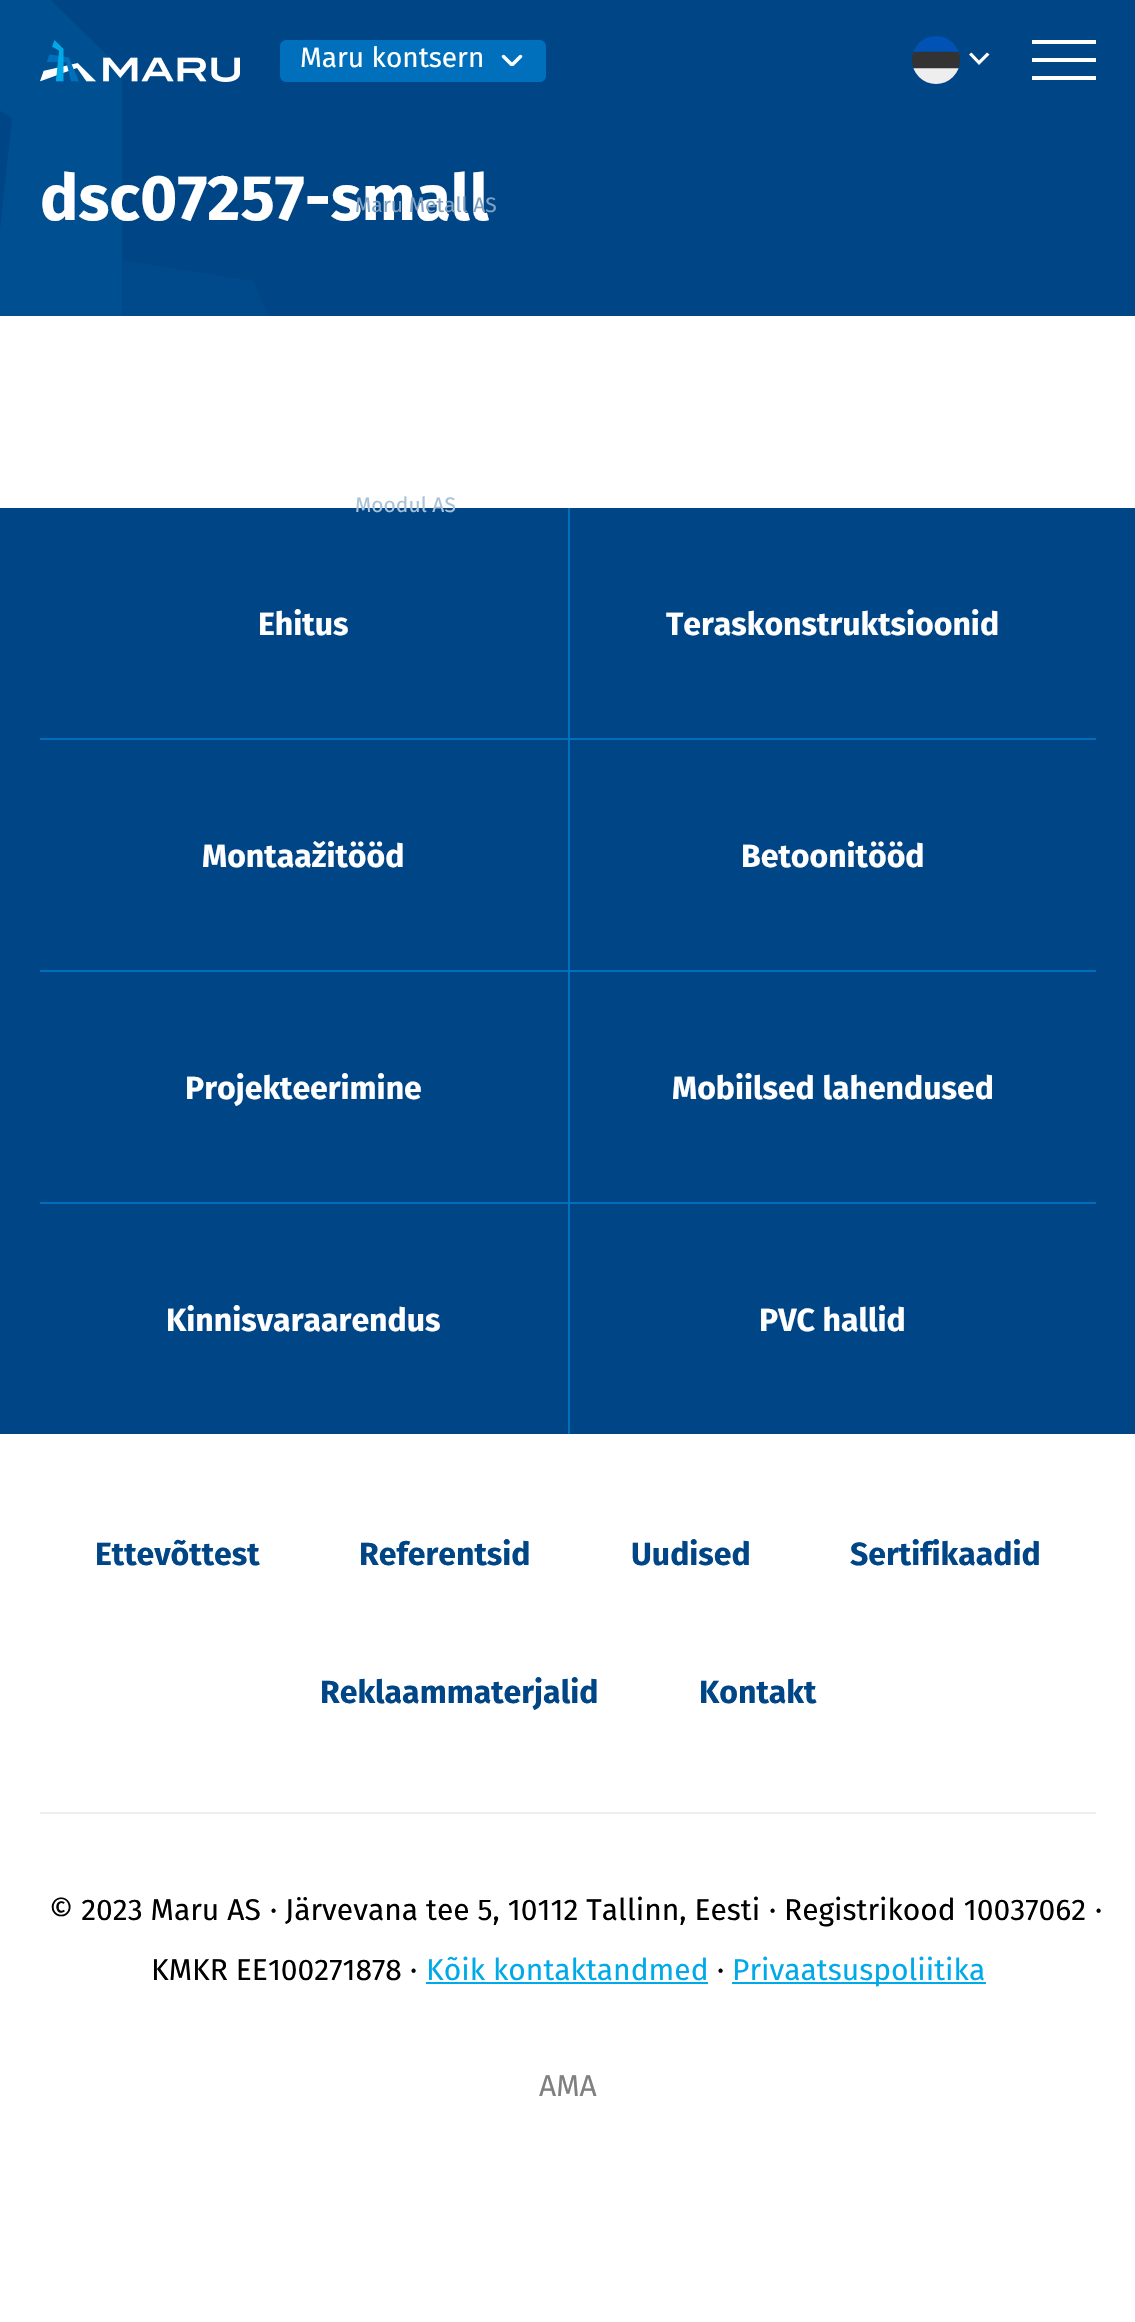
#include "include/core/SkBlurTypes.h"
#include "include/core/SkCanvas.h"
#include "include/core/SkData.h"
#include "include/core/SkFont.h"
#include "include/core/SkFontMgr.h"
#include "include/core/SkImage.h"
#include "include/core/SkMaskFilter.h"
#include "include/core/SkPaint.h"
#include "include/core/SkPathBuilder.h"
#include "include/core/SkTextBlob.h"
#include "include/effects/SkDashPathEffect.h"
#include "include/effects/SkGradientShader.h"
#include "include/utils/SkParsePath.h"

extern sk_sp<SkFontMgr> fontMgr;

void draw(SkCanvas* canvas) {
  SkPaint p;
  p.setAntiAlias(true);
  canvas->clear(SK_ColorWHITE);
  p.setColor(SkColorSetRGB(0, 69, 134));
  canvas->drawRect(SkRect::MakeLTRB(0, 0, 1135, 316), p);
  canvas->save();
  canvas->clipRect(SkRect::MakeLTRB(0, 0, 936, 316));
  p.setColor(SkColorSetRGB(0, 73, 139));
  canvas->drawPath(SkPathBuilder(SkPathFillType::kEvenOdd).moveTo(191, 398).lineTo(311, 878).lineTo(507, 878).lineTo(253, 281).lineTo(-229, 205).lineTo(-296, 398).close().detach(), p);
  p.setColor(SkColorSetRGB(0, 79, 144));
  canvas->drawPath(SkPathBuilder().moveTo(-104, -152).lineTo(-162, 13).lineTo(12, 118).lineTo(-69, 878).lineTo(122, 878).lineTo(122, 70).close().detach(), p);
  canvas->restore();
  canvas->drawImageRect(SkImages::DeferredFromEncodedData(SkData::MakeFromFileName("images/1.png")), SkRect::MakeLTRB(40, 40, 240, 82), SkSamplingOptions());
  p.setColor(SkColorSetRGB(0, 112, 188));
  canvas->drawRoundRect(SkRect::MakeLTRB(281, 41, 545, 81), 5, 5, p);
  p.setStyle(SkPaint::kStroke_Style);
  p.setStrokeWidth(2);
  canvas->drawRoundRect(SkRect::MakeLTRB(281, 41, 545, 81), 5, 5, p);
  canvas->save();
  canvas->clipRect(SkRect::MakeLTRB(500, 54, 524, 66));
  p.setStrokeWidth(3.5f);
  p.setStrokeCap(SkPaint::kRound_Cap);
  p.setStrokeJoin(SkPaint::kRound_Join);
  p.setColor(SK_ColorWHITE);
  canvas->drawPath(SkPathBuilder().moveTo(503.5f, 56.5f).lineTo(512, 65).lineTo(520.5f, 56.5f).detach(), p);
  canvas->restore();
  canvas->drawImageRect(SkImages::DeferredFromEncodedData(SkData::MakeFromFileName("images/2.png")), SkRect::MakeLTRB(912, 36, 960, 84), SkSamplingOptions());
  p.setStyle(SkPaint::kFill_Style);
  canvas->drawPath(SkPathBuilder().moveTo(979, 60.5f).lineTo(987, 52.5f).lineTo(989.5f, 54.5f).lineTo(979, 65).lineTo(969, 54.5f).lineTo(971.5f, 52.5f).close().detach(), p);
  canvas->drawRect(SkRect::MakeLTRB(1032, 40, 1096, 44), p);
  canvas->drawRect(SkRect::MakeLTRB(1032, 58, 1096, 62), p);
  canvas->drawRect(SkRect::MakeLTRB(1032, 76, 1096, 80), p);
  p.setColor(SkColorSetRGB(0, 69, 134));
  canvas->drawRect(SkRect::MakeLTRB(0, 508, 1135, 1434), p);
  canvas->save();
  canvas->clipRect(SkRect::MakeLTRB(40, 508, 1096, 1434));
  p.setStyle(SkPaint::kStroke_Style);
  p.setStrokeWidth(2);
  p.setStrokeCap(SkPaint::kButt_Cap);
  p.setStrokeJoin(SkPaint::kMiter_Join);
  p.setColor(SkColorSetRGB(0, 112, 188));
  canvas->drawRect(SkRect::MakeLTRB(569, 507, 1097, 739), p);
  canvas->drawRect(SkRect::MakeLTRB(39, 739, 569, 971), p);
  canvas->drawRect(SkRect::MakeLTRB(569, 739, 1097, 971), p);
  canvas->drawRect(SkRect::MakeLTRB(39, 971, 569, 1203), p);
  canvas->drawRect(SkRect::MakeLTRB(569, 971, 1097, 1203), p);
  canvas->drawRect(SkRect::MakeLTRB(39, 1203, 569, 1435), p);
  canvas->restore();
  p.setStyle(SkPaint::kFill_Style);
  p.setColor(SkColorSetRGB(236, 238, 241));
  canvas->drawRect(SkRect::MakeLTRB(40, 1812, 1096, 1814), p);
  p.setColor(SkColorSetRGB(0, 169, 231));
  canvas->drawRect(SkRect::MakeLTRB(426, 1982, 708, 1984), p);
  canvas->drawRect(SkRect::MakeLTRB(732, 1982, 986, 1984), p);
  SkFont font1(fontMgr->matchFamilyStyle("Fira Sans", SkFontStyle::Normal()), 28);
  font1.setSubpixel(true);
  p.setColor(SK_ColorWHITE);
  canvas->drawString("Maru kontsern", 300, 67, font1, p);
  SkFont font2(fontMgr->matchFamilyStyle("Fira Sans", SkFontStyle::Normal()), 21);
  font2.setSubpixel(true);
  p.setColor(SkColorSetRGB(170, 193, 215));
  canvas->drawString("Moodul AS", 355, 512, font2, p);
  SkFont font3(fontMgr->matchFamilyStyle("Fira Sans", SkFontStyle::Bold()), 64);
  font3.setSubpixel(true);
  p.setColor(SK_ColorWHITE);
  canvas->drawString("dsc07257-small", 40, 220, font3, p);
  p.setColor(SkColorSetRGB(127, 162, 194));
  canvas->drawString("Maru Metall AS", 355, 212, font2, p);
  SkFont font4(fontMgr->matchFamilyStyle("Fira Sans", SkFontStyle::Bold()), 32);
  font4.setSubpixel(true);
  p.setColor(SK_ColorWHITE);
  canvas->drawString("Ehitus", 258, 635, font4, p);
  canvas->drawString("Teraskonstruktsioonid", 666, 635, font4, p);
  canvas->drawString("Montaažitööd", 202, 867, font4, p);
  canvas->drawString("Betoonitööd", 741, 867, font4, p);
  canvas->drawString("Projekteerimine", 185, 1099, font4, p);
  canvas->drawString("Mobiilsed lahendused", 672, 1099, font4, p);
  canvas->drawString("Kinnisvaraarendus", 166, 1331, font4, p);
  canvas->drawString("PVC hallid", 759, 1331, font4, p);
  p.setColor(SkColorSetRGB(0, 69, 134));
  canvas->drawString("Ettevõttest", 95, 1565, font4, p);
  canvas->drawString("Referentsid", 359, 1565, font4, p);
  canvas->drawString("Uudised", 631, 1565, font4, p);
  canvas->drawString("Sertifikaadid", 850, 1565, font4, p);
  canvas->drawString("Reklaammaterjalid", 320, 1703, font4, p);
  canvas->drawString("Kontakt", 699, 1703, font4, p);
  SkFont font5(fontMgr->matchFamilyStyle("Fira Sans", SkFontStyle::Normal()), 30);
  font5.setSubpixel(true);
  p.setColor(SK_ColorBLACK);
  canvas->drawString("© 2023 Maru AS", 49, 1920, font5, p);
  canvas->drawString("·", 270, 1920, font5, p);
  canvas->drawString("Järvevana tee 5, 10112 Tallinn, Eesti", 285, 1920, font5, p);
  canvas->drawString("·", 769, 1920, font5, p);
  canvas->drawString("Registrikood 10037062", 784, 1920, font5, p);
  canvas->drawString("·", 1095, 1920, font5, p);
  canvas->drawString("KMKR EE100271878", 151, 1980, font5, p);
  canvas->drawString("·", 410, 1980, font5, p);
  p.setColor(SkColorSetRGB(0, 169, 231));
  canvas->drawString("Kõik kontaktandmed", 426, 1980, font5, p);
  p.setColor(SK_ColorBLACK);
  canvas->drawString("·", 717, 1980, font5, p);
  p.setColor(SkColorSetRGB(0, 169, 231));
  canvas->drawString("Privaatsuspoliitika", 732, 1980, font5, p);
  p.setColor(SkColorSetRGB(128, 128, 128));
  canvas->drawString("AMA", 539, 2096, font5, p);
}
